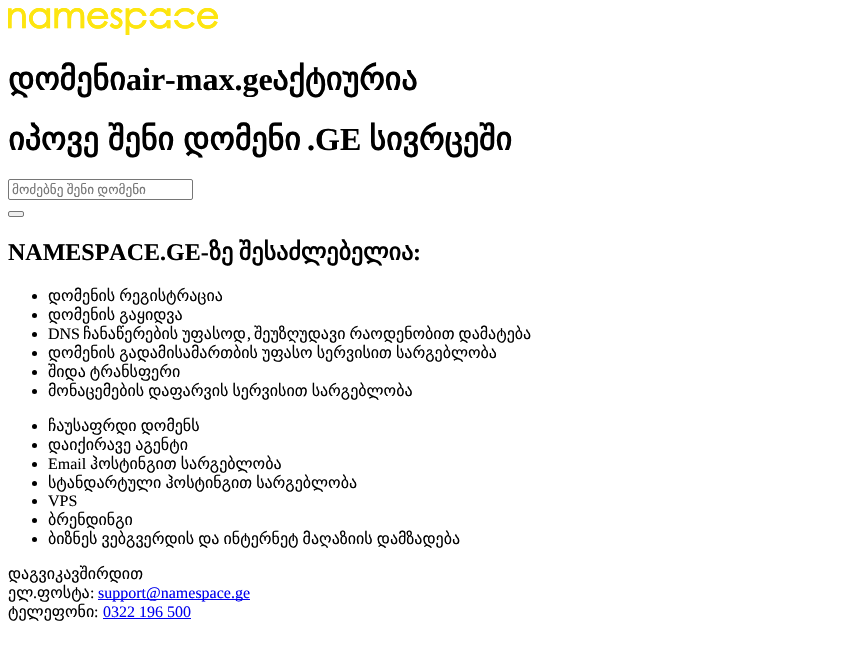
#include "include/core/SkBlurTypes.h"
#include "include/core/SkCanvas.h"
#include "include/core/SkData.h"
#include "include/core/SkFont.h"
#include "include/core/SkFontMgr.h"
#include "include/core/SkImage.h"
#include "include/core/SkMaskFilter.h"
#include "include/core/SkPaint.h"
#include "include/core/SkPathBuilder.h"
#include "include/core/SkTextBlob.h"
#include "include/effects/SkDashPathEffect.h"
#include "include/effects/SkGradientShader.h"
#include "include/utils/SkParsePath.h"

extern sk_sp<SkFontMgr> fontMgr;

void draw(SkCanvas* canvas) {
  SkPaint p;
  p.setAntiAlias(true);
  auto spacedText = [&](const char* s, float x, float y, const SkFont& font, const SkPaint& ink, float letter, float word) {
    std::vector<SkGlyphID> glyphs(font.countText(s, strlen(s), SkTextEncoding::kUTF8));
    std::vector<float> xs(glyphs.size());
    font.textToGlyphs(s, strlen(s), SkTextEncoding::kUTF8, glyphs);
    font.getXPos(glyphs, xs, x);
    float extra = 0;
    for (size_t i = 0; i < glyphs.size(); i++) {
      xs[i] += extra;
      extra += letter + word * (glyphs[i] == font.unicharToGlyph(' '));
    }
    canvas->drawTextBlob(SkTextBlob::MakeFromPosHGlyphs(glyphs, xs, y, font), 0, 0, ink);
  };
  canvas->clear(SK_ColorWHITE);
  canvas->drawImageRect(SkImages::DeferredFromEncodedData(SkData::MakeFromFileName("images/1.png")), SkRect::MakeLTRB(8, 8, 218, 35), SkSamplingOptions());
  p.setStyle(SkPaint::kStroke_Style);
  p.setStrokeWidth(1);
  p.setColor(SkColorSetRGB(118, 118, 118));
  canvas->drawRoundRect(SkRect::MakeLTRB(8.5f, 179.5f, 192.5f, 199.5f), 1.5f, 1.5f, p);
  p.setStyle(SkPaint::kFill_Style);
  p.setColor(SkColorSetRGB(239, 239, 239));
  canvas->drawRoundRect(SkRect::MakeLTRB(8.5f, 211.5f, 23.5f, 216.5f), 1.5f, 1.5f, p);
  p.setStyle(SkPaint::kStroke_Style);
  p.setColor(SkColorSetRGB(118, 118, 118));
  canvas->drawRoundRect(SkRect::MakeLTRB(8.5f, 211.5f, 23.5f, 216.5f), 1.5f, 1.5f, p);
  p.setStyle(SkPaint::kFill_Style);
  p.setColor(SK_ColorBLACK);
  canvas->drawCircle(34.5f, 296.5f, 2.5f, p);
  canvas->drawCircle(34.5f, 315.5f, 2.5f, p);
  canvas->drawCircle(34.5f, 334.5f, 2.5f, p);
  canvas->drawCircle(34.5f, 353.5f, 2.5f, p);
  canvas->drawCircle(34.5f, 372.5f, 2.5f, p);
  canvas->drawCircle(34.5f, 391.5f, 2.5f, p);
  canvas->drawCircle(34.5f, 426.5f, 2.5f, p);
  canvas->drawCircle(34.5f, 445.5f, 2.5f, p);
  canvas->drawCircle(34.5f, 464.5f, 2.5f, p);
  canvas->drawCircle(34.5f, 483.5f, 2.5f, p);
  canvas->drawCircle(34.5f, 501.5f, 2.5f, p);
  canvas->drawCircle(34.5f, 520.5f, 2.5f, p);
  canvas->drawCircle(34.5f, 539.5f, 2.5f, p);
  p.setColor(SkColorSetRGB(0, 0, 238));
  canvas->drawRect(SkRect::MakeLTRB(98, 599, 250, 600), p);
  canvas->drawRect(SkRect::MakeLTRB(103, 618, 191, 619), p);
  SkFont font1(fontMgr->matchFamilyStyle("DejaVu Sans", SkFontStyle::Bold()), 32);
  font1.setSubpixel(true);
  p.setColor(SK_ColorBLACK);
  canvas->drawString("დომენი", 8, 90, font1, p);
  SkFont font2(fontMgr->matchFamilyStyle("Liberation Serif", SkFontStyle::Bold()), 32);
  font2.setSubpixel(true);
  canvas->drawString("air-max.ge", 126, 90, font2, p);
  canvas->drawString("აქტიურია", 272, 90, font1, p);
  spacedText("იპოვე შენი დომენი", 8, 150, font1, p, 0, -1);
  canvas->drawString(".GE", 307, 150, font2, p);
  canvas->drawString("სივრცეში", 369, 150, font1, p);
  canvas->save();
  canvas->clipRect(SkRect::MakeLTRB(12, 182, 189, 197));
  SkFont font3(fontMgr->matchFamilyStyle("DejaVu Sans", SkFontStyle::Normal()), 13.25f);
  font3.setSubpixel(true);
  p.setColor(SkColorSetRGB(117, 117, 117));
  spacedText("მოძებნე შენი დომენი", 12, 194, font3, p, 0, -1);
  canvas->restore();
  SkFont font4(fontMgr->matchFamilyStyle("Liberation Serif", SkFontStyle::Bold()), 24);
  font4.setSubpixel(true);
  p.setColor(SK_ColorBLACK);
  canvas->drawString("NAMESPACE.GE-", 8, 260, font4, p);
  SkFont font5(fontMgr->matchFamilyStyle("DejaVu Sans", SkFontStyle::Bold()), 24);
  font5.setSubpixel(true);
  spacedText("ზე შესაძლებელია", 209, 260, font5, p, 0, -2);
  canvas->drawString(":", 413, 260, font4, p);
  SkFont font6(fontMgr->matchFamilyStyle("DejaVu Sans", SkFontStyle::Normal()), 16);
  font6.setSubpixel(true);
  spacedText("დომენის რეგისტრაცია", 48, 301, font6, p, 0, -1);
  spacedText("დომენის გაყიდვა", 48, 320, font6, p, 0, -1);
  SkFont font7(fontMgr->matchFamilyStyle("Liberation Serif", SkFontStyle::Normal()), 16);
  font7.setSubpixel(true);
  canvas->drawString("DNS", 48, 339, font7, p);
  spacedText("ჩანაწერების უფასოდ", 83, 339, font6, p, 0, -1);
  spacedText("შეუზღუდავი რაოდენობით დამატება", 254, 339, font6, p, 0, -1);
  canvas->drawString(",", 247, 339, font7, p);
  spacedText("დომენის გადამისამართბის უფასო სერვისით სარგებლობა", 48, 358, font6, p, 0, -1);
  spacedText("შიდა ტრანსფერი", 48, 377, font6, p, 0, -1);
  spacedText("მონაცემების დაფარვის სერვისით სარგებლობა", 48, 396, font6, p, 0, -1);
  spacedText("ჩაუსაფრდი დომენს", 48, 431, font6, p, 0, -1);
  spacedText("დაიქირავე აგენტი", 48, 450, font6, p, 0, -1);
  canvas->drawString("Email", 48, 469, font7, p);
  spacedText("ჰოსტინგით სარგებლობა", 90, 469, font6, p, 0, -1);
  spacedText("სტანდარტული ჰოსტინგით სარგებლობა", 48, 488, font6, p, 0, -1);
  canvas->drawString("VPS", 48, 506, font7, p);
  canvas->drawString("ბრენდინგი", 48, 525, font6, p);
  spacedText("ბიზნეს ვებგვერდის და ინტერნეტ მაღაზიის დამზადება", 48, 544, font6, p, 0, -1);
  canvas->drawString("დაგვიკავშირდით", 8, 579, font6, p);
  canvas->drawString("ელ", 8, 598, font6, p);
  canvas->drawString(".", 33, 598, font7, p);
  canvas->drawString("ფოსტა", 37, 598, font6, p);
  canvas->drawString(":", 90, 598, font7, p);
  p.setColor(SkColorSetRGB(0, 0, 238));
  canvas->drawString("support@namespace.ge", 98, 598, font7, p);
  p.setColor(SK_ColorBLACK);
  canvas->drawString("ტელეფონი", 8, 617, font6, p);
  canvas->drawString(":", 94, 617, font7, p);
  p.setColor(SkColorSetRGB(0, 0, 238));
  canvas->drawString("0322 196 500", 103, 617, font7, p);
}
